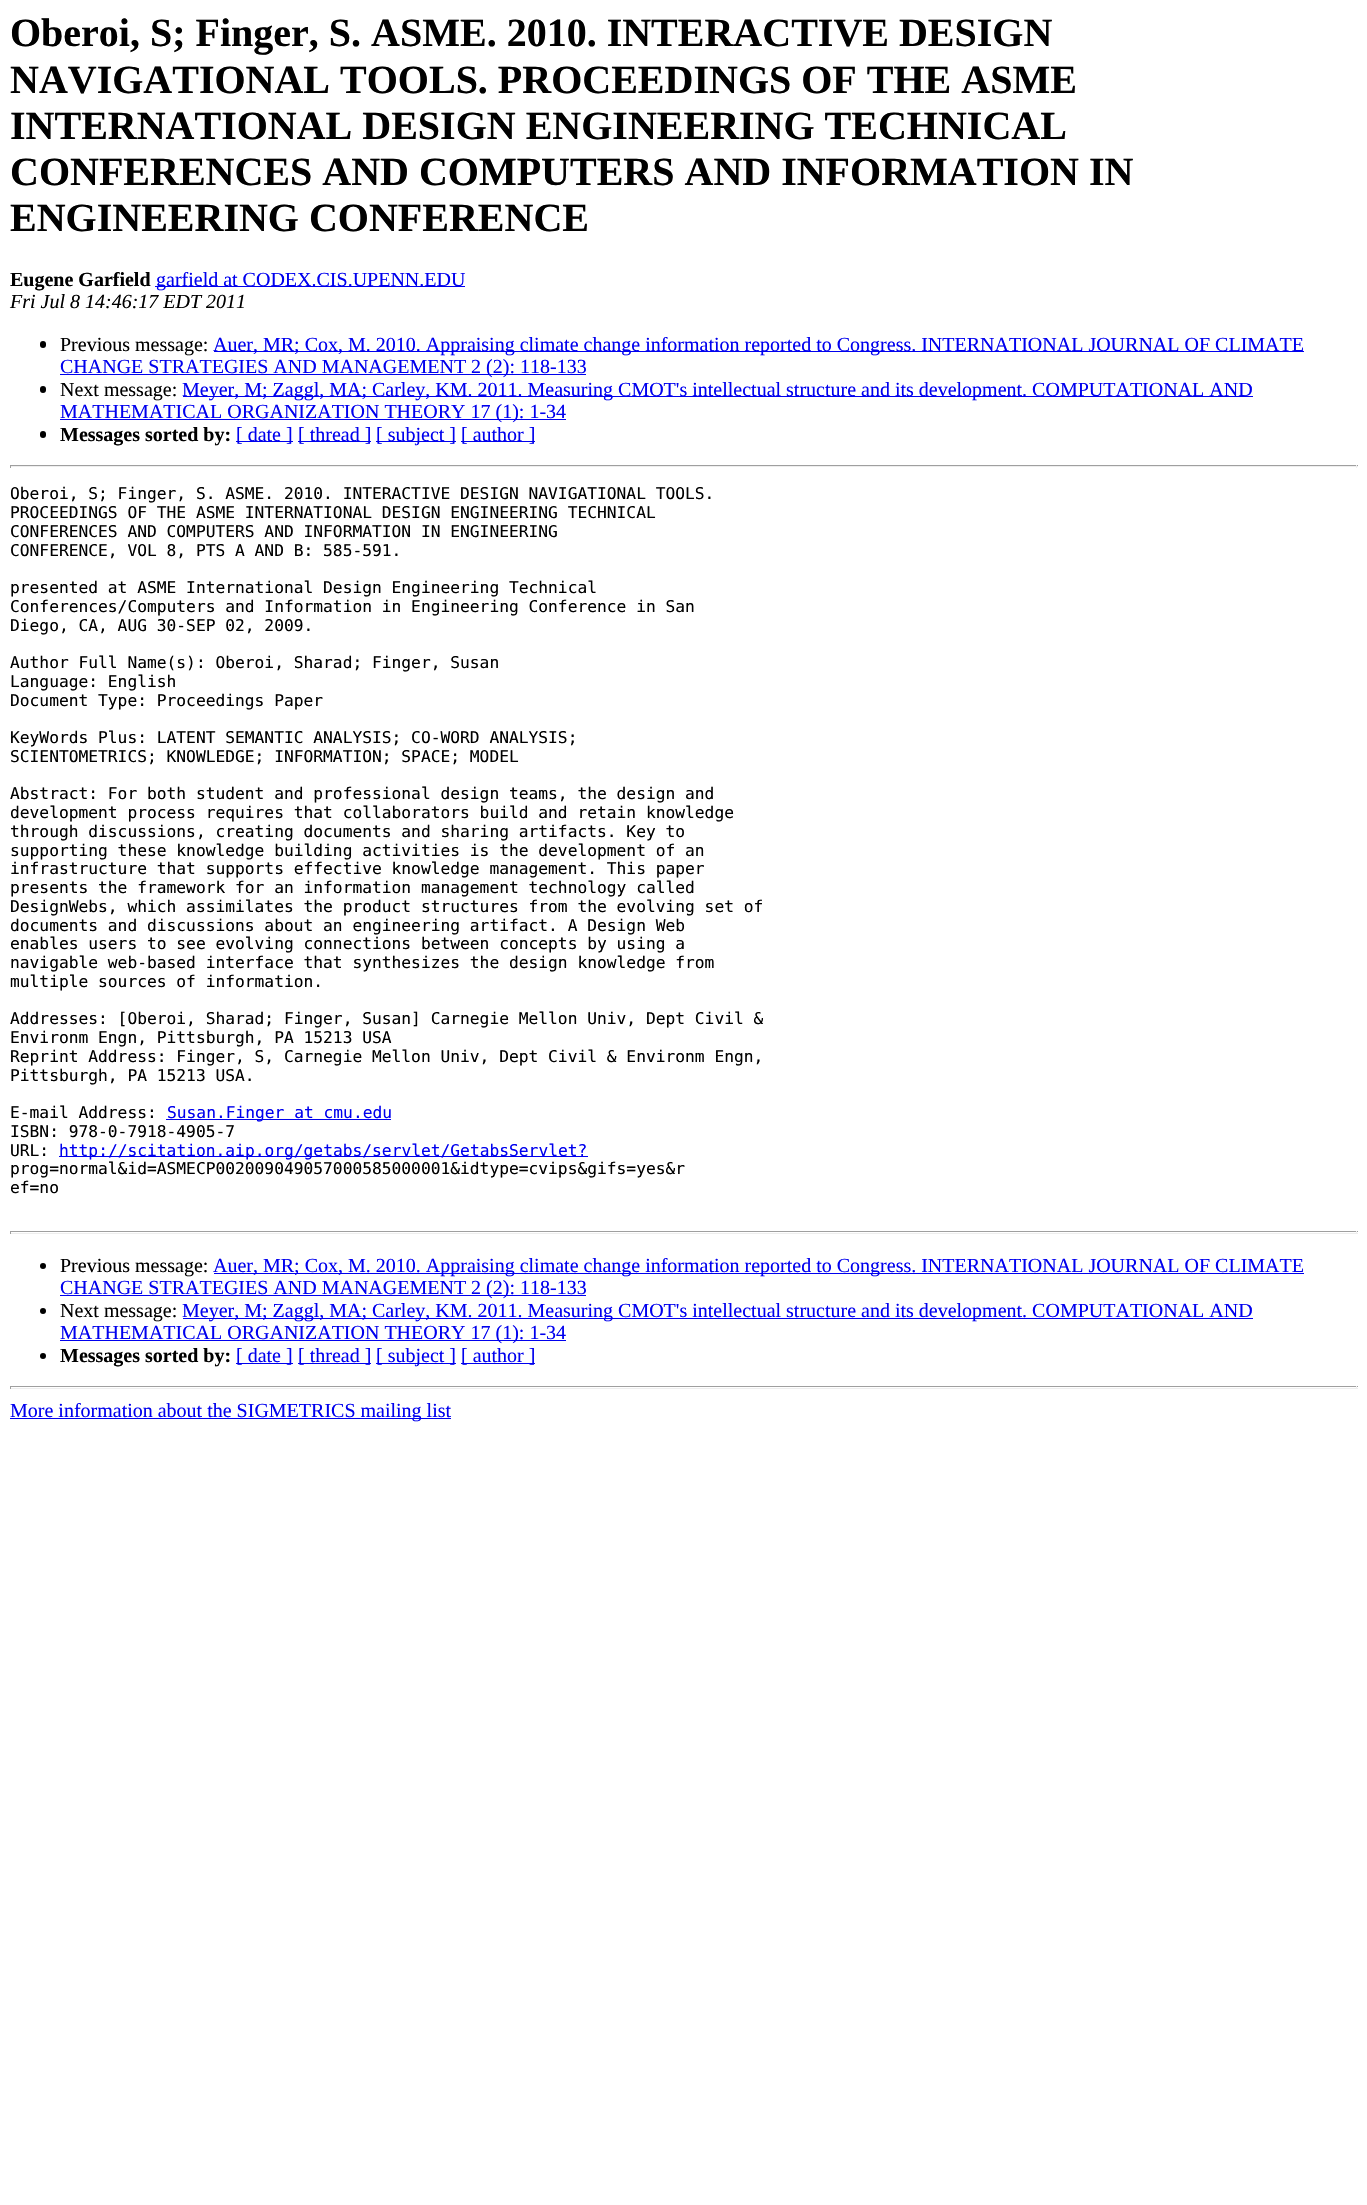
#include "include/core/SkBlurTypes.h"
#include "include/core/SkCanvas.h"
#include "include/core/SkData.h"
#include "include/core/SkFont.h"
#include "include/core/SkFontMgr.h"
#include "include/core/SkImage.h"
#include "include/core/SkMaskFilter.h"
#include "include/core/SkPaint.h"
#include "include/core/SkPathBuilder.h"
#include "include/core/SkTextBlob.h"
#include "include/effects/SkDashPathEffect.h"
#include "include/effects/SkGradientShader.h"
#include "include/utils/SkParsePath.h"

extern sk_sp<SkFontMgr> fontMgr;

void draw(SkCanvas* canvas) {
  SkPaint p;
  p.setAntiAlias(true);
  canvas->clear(SK_ColorWHITE);
  p.setColor(SkColorSetRGB(0, 0, 238));
  canvas->drawRect(SkRect::MakeLTRB(155, 286, 465, 287), p);
  p.setColor(SK_ColorBLACK);
  canvas->drawRoundRect(SkRect::MakeLTRB(40, 341, 46, 348), 3, 3, p);
  p.setColor(SkColorSetRGB(0, 0, 238));
  canvas->drawRect(SkRect::MakeLTRB(214, 351, 1304, 352), p);
  canvas->drawRect(SkRect::MakeLTRB(60, 374, 586, 375), p);
  p.setColor(SK_ColorBLACK);
  canvas->drawRoundRect(SkRect::MakeLTRB(40, 386, 46, 393), 3, 3, p);
  p.setColor(SkColorSetRGB(0, 0, 238));
  canvas->drawRect(SkRect::MakeLTRB(183, 396, 1253, 397), p);
  canvas->drawRect(SkRect::MakeLTRB(60, 419, 566, 420), p);
  p.setColor(SK_ColorBLACK);
  canvas->drawRoundRect(SkRect::MakeLTRB(40, 431, 46, 438), 3, 3, p);
  p.setColor(SkColorSetRGB(0, 0, 238));
  canvas->drawRect(SkRect::MakeLTRB(236, 441, 293, 442), p);
  canvas->drawRect(SkRect::MakeLTRB(298, 441, 371, 442), p);
  canvas->drawRect(SkRect::MakeLTRB(376, 441, 456, 442), p);
  canvas->drawRect(SkRect::MakeLTRB(461, 441, 535, 442), p);
  p.setColor(SkColorSetRGB(159, 159, 159));
  canvas->drawRect(SkRect::MakeLTRB(10, 465, 1358, 466), p);
  p.setColor(SkColorSetRGB(238, 238, 238));
  canvas->drawRect(SkRect::MakeLTRB(1356, 465, 1357, 468), p);
  canvas->drawRect(SkRect::MakeLTRB(10, 466, 1358, 467), p);
  p.setColor(SkColorSetRGB(159, 159, 159));
  canvas->drawRect(SkRect::MakeLTRB(10, 465, 11, 468), p);
  p.setColor(SkColorSetRGB(0, 0, 238));
  canvas->drawRect(SkRect::MakeLTRB(166, 1119, 391, 1120), p);
  canvas->drawRect(SkRect::MakeLTRB(59, 1156, 588, 1157), p);
  p.setColor(SkColorSetRGB(159, 159, 159));
  canvas->drawRect(SkRect::MakeLTRB(10, 1231, 1358, 1232), p);
  p.setColor(SkColorSetRGB(238, 238, 238));
  canvas->drawRect(SkRect::MakeLTRB(1356, 1231, 1357, 1234), p);
  canvas->drawRect(SkRect::MakeLTRB(10, 1233, 1358, 1234), p);
  p.setColor(SkColorSetRGB(159, 159, 159));
  canvas->drawRect(SkRect::MakeLTRB(10, 1231, 11, 1234), p);
  p.setColor(SK_ColorBLACK);
  canvas->drawCircle(43, 1266, 3, p);
  p.setColor(SkColorSetRGB(0, 0, 238));
  canvas->drawRect(SkRect::MakeLTRB(214, 1273, 1304, 1274), p);
  canvas->drawRect(SkRect::MakeLTRB(60, 1295, 586, 1296), p);
  p.setColor(SK_ColorBLACK);
  canvas->drawCircle(43, 1311, 3, p);
  p.setColor(SkColorSetRGB(0, 0, 238));
  canvas->drawRect(SkRect::MakeLTRB(183, 1318, 1253, 1319), p);
  canvas->drawRect(SkRect::MakeLTRB(60, 1340, 566, 1341), p);
  p.setColor(SK_ColorBLACK);
  canvas->drawCircle(43, 1356, 3, p);
  p.setColor(SkColorSetRGB(0, 0, 238));
  canvas->drawRect(SkRect::MakeLTRB(236, 1363, 293, 1364), p);
  canvas->drawRect(SkRect::MakeLTRB(298, 1363, 371, 1364), p);
  canvas->drawRect(SkRect::MakeLTRB(376, 1363, 456, 1364), p);
  canvas->drawRect(SkRect::MakeLTRB(461, 1363, 535, 1364), p);
  p.setColor(SkColorSetRGB(159, 159, 159));
  canvas->drawRect(SkRect::MakeLTRB(10, 1386, 1358, 1387), p);
  p.setColor(SkColorSetRGB(238, 238, 238));
  canvas->drawRect(SkRect::MakeLTRB(1356, 1386, 1357, 1389), p);
  canvas->drawRect(SkRect::MakeLTRB(10, 1388, 1358, 1389), p);
  p.setColor(SkColorSetRGB(159, 159, 159));
  canvas->drawRect(SkRect::MakeLTRB(10, 1386, 11, 1389), p);
  p.setColor(SkColorSetRGB(0, 0, 238));
  canvas->drawRect(SkRect::MakeLTRB(10, 1418, 451, 1419), p);
  SkFont font1(fontMgr->matchFamilyStyle("Liberation Serif", SkFontStyle::Bold()), 40);
  font1.setSubpixel(true);
  p.setColor(SK_ColorBLACK);
  canvas->drawString("Oberoi, S; Finger, S. ASME. 2010. INTERACTIVE DESIGN", 10, 46, font1, p);
  canvas->drawString("NAVIGATIONAL TOOLS. PROCEEDINGS OF THE ASME", 10, 93, font1, p);
  canvas->drawString("INTERNATIONAL DESIGN ENGINEERING TECHNICAL", 10, 139, font1, p);
  canvas->drawString("CONFERENCES AND COMPUTERS AND INFORMATION IN", 10, 185, font1, p);
  canvas->drawString("ENGINEERING CONFERENCE", 10, 231, font1, p);
  SkFont font2(fontMgr->matchFamilyStyle("Liberation Serif", SkFontStyle::Bold()), 20);
  font2.setSubpixel(true);
  canvas->drawString("Eugene Garfield", 10, 286, font2, p);
  SkFont font3(fontMgr->matchFamilyStyle("Liberation Serif", SkFontStyle::Normal()), 20);
  font3.setSubpixel(true);
  p.setColor(SkColorSetRGB(0, 0, 238));
  canvas->drawString("garfield at CODEX.CIS.UPENN.EDU", 156, 286, font3, p);
  SkFont font4(fontMgr->matchFamilyStyle("Liberation Serif", SkFontStyle::Italic()), 20);
  font4.setSubpixel(true);
  p.setColor(SK_ColorBLACK);
  canvas->drawString("Fri Jul 8 14:46:17 EDT 2011", 10, 308, font4, p);
  canvas->drawString("Previous message:", 60, 351, font3, p);
  p.setColor(SkColorSetRGB(0, 0, 238));
  canvas->drawString("Auer, MR; Cox, M. 2010. Appraising climate change information reported to Congress. INTERNATIONAL JOURNAL OF CLIMATE", 213, 351, font3, p);
  canvas->drawString("CHANGE STRATEGIES AND MANAGEMENT 2 (2): 118-133", 60, 373, font3, p);
  p.setColor(SK_ColorBLACK);
  canvas->drawString("Next message:", 60, 396, font3, p);
  p.setColor(SkColorSetRGB(0, 0, 238));
  canvas->drawString("Meyer, M; Zaggl, MA; Carley, KM. 2011. Measuring CMOT's intellectual structure and its development. COMPUTATIONAL AND", 182, 396, font3, p);
  canvas->drawString("MATHEMATICAL ORGANIZATION THEORY 17 (1): 1-34", 60, 418, font3, p);
  p.setColor(SK_ColorBLACK);
  canvas->drawString("Messages sorted by:", 60, 441, font2, p);
  p.setColor(SkColorSetRGB(0, 0, 238));
  canvas->drawString("[ date ]", 236, 441, font3, p);
  canvas->drawString("[ thread ]", 298, 441, font3, p);
  canvas->drawString("[ subject ]", 376, 441, font3, p);
  canvas->drawString("[ author ]", 461, 441, font3, p);
  SkFont font5(fontMgr->matchFamilyStyle("DejaVu Sans Mono", SkFontStyle::Normal()), 16.25f);
  font5.setSubpixel(true);
  p.setColor(SK_ColorBLACK);
  canvas->drawString("Oberoi, S; Finger, S. ASME. 2010. INTERACTIVE DESIGN NAVIGATIONAL TOOLS.", 10, 499, font5, p);
  canvas->drawString("PROCEEDINGS OF THE ASME INTERNATIONAL DESIGN ENGINEERING TECHNICAL", 10, 518, font5, p);
  canvas->drawString("CONFERENCES AND COMPUTERS AND INFORMATION IN ENGINEERING", 10, 537, font5, p);
  canvas->drawString("CONFERENCE, VOL 8, PTS A AND B: 585-591.", 10, 556, font5, p);
  canvas->drawString("presented at ASME International Design Engineering Technical", 10, 593, font5, p);
  canvas->drawString("Conferences/Computers and Information in Engineering Conference in San", 10, 612, font5, p);
  canvas->drawString("Diego, CA, AUG 30-SEP 02, 2009.", 10, 631, font5, p);
  canvas->drawString("Author Full Name(s): Oberoi, Sharad; Finger, Susan", 10, 668, font5, p);
  canvas->drawString("Language: English", 10, 687, font5, p);
  canvas->drawString("Document Type: Proceedings Paper", 10, 706, font5, p);
  canvas->drawString("KeyWords Plus: LATENT SEMANTIC ANALYSIS; CO-WORD ANALYSIS;", 10, 743, font5, p);
  canvas->drawString("SCIENTOMETRICS; KNOWLEDGE; INFORMATION; SPACE; MODEL", 10, 762, font5, p);
  canvas->drawString("Abstract: For both student and professional design teams, the design and", 10, 799, font5, p);
  canvas->drawString("development process requires that collaborators build and retain knowledge", 10, 818, font5, p);
  canvas->drawString("through discussions, creating documents and sharing artifacts. Key to", 10, 837, font5, p);
  canvas->drawString("supporting these knowledge building activities is the development of an", 10, 856, font5, p);
  canvas->drawString("infrastructure that supports effective knowledge management. This paper", 10, 874, font5, p);
  canvas->drawString("presents the framework for an information management technology called", 10, 893, font5, p);
  canvas->drawString("DesignWebs, which assimilates the product structures from the evolving set of", 10, 912, font5, p);
  canvas->drawString("documents and discussions about an engineering artifact. A Design Web", 10, 931, font5, p);
  canvas->drawString("enables users to see evolving connections between concepts by using a", 10, 949, font5, p);
  canvas->drawString("navigable web-based interface that synthesizes the design knowledge from", 10, 968, font5, p);
  canvas->drawString("multiple sources of information.", 10, 987, font5, p);
  canvas->drawString("Addresses: [Oberoi, Sharad; Finger, Susan] Carnegie Mellon Univ, Dept Civil &", 10, 1024, font5, p);
  canvas->drawString("Environm Engn, Pittsburgh, PA 15213 USA", 10, 1043, font5, p);
  canvas->drawString("Reprint Address: Finger, S, Carnegie Mellon Univ, Dept Civil & Environm Engn,", 10, 1062, font5, p);
  canvas->drawString("Pittsburgh, PA 15213 USA.", 10, 1081, font5, p);
  canvas->drawString("E-mail Address:", 10, 1118, font5, p);
  p.setColor(SkColorSetRGB(0, 0, 238));
  canvas->drawString("Susan.Finger at cmu.edu", 167, 1118, font5, p);
  p.setColor(SK_ColorBLACK);
  canvas->drawString("ISBN: 978-0-7918-4905-7", 10, 1137, font5, p);
  canvas->drawString("URL:", 10, 1156, font5, p);
  p.setColor(SkColorSetRGB(0, 0, 238));
  canvas->drawString("http://scitation.aip.org/getabs/servlet/GetabsServlet?", 59, 1156, font5, p);
  p.setColor(SK_ColorBLACK);
  canvas->drawString("prog=normal&id=ASMECP002009049057000585000001&idtype=cvips&gifs=yes&r", 10, 1174, font5, p);
  canvas->drawString("ef=no", 10, 1193, font5, p);
  canvas->drawString("Previous message:", 60, 1272, font3, p);
  p.setColor(SkColorSetRGB(0, 0, 238));
  canvas->drawString("Auer, MR; Cox, M. 2010. Appraising climate change information reported to Congress. INTERNATIONAL JOURNAL OF CLIMATE", 213, 1272, font3, p);
  canvas->drawString("CHANGE STRATEGIES AND MANAGEMENT 2 (2): 118-133", 60, 1294, font3, p);
  p.setColor(SK_ColorBLACK);
  canvas->drawString("Next message:", 60, 1317, font3, p);
  p.setColor(SkColorSetRGB(0, 0, 238));
  canvas->drawString("Meyer, M; Zaggl, MA; Carley, KM. 2011. Measuring CMOT's intellectual structure and its development. COMPUTATIONAL AND", 182, 1317, font3, p);
  canvas->drawString("MATHEMATICAL ORGANIZATION THEORY 17 (1): 1-34", 60, 1339, font3, p);
  p.setColor(SK_ColorBLACK);
  canvas->drawString("Messages sorted by:", 60, 1362, font2, p);
  p.setColor(SkColorSetRGB(0, 0, 238));
  canvas->drawString("[ date ]", 236, 1362, font3, p);
  canvas->drawString("[ thread ]", 298, 1362, font3, p);
  canvas->drawString("[ subject ]", 376, 1362, font3, p);
  canvas->drawString("[ author ]", 461, 1362, font3, p);
  canvas->drawString("More information about the SIGMETRICS mailing list", 10, 1417, font3, p);
}
